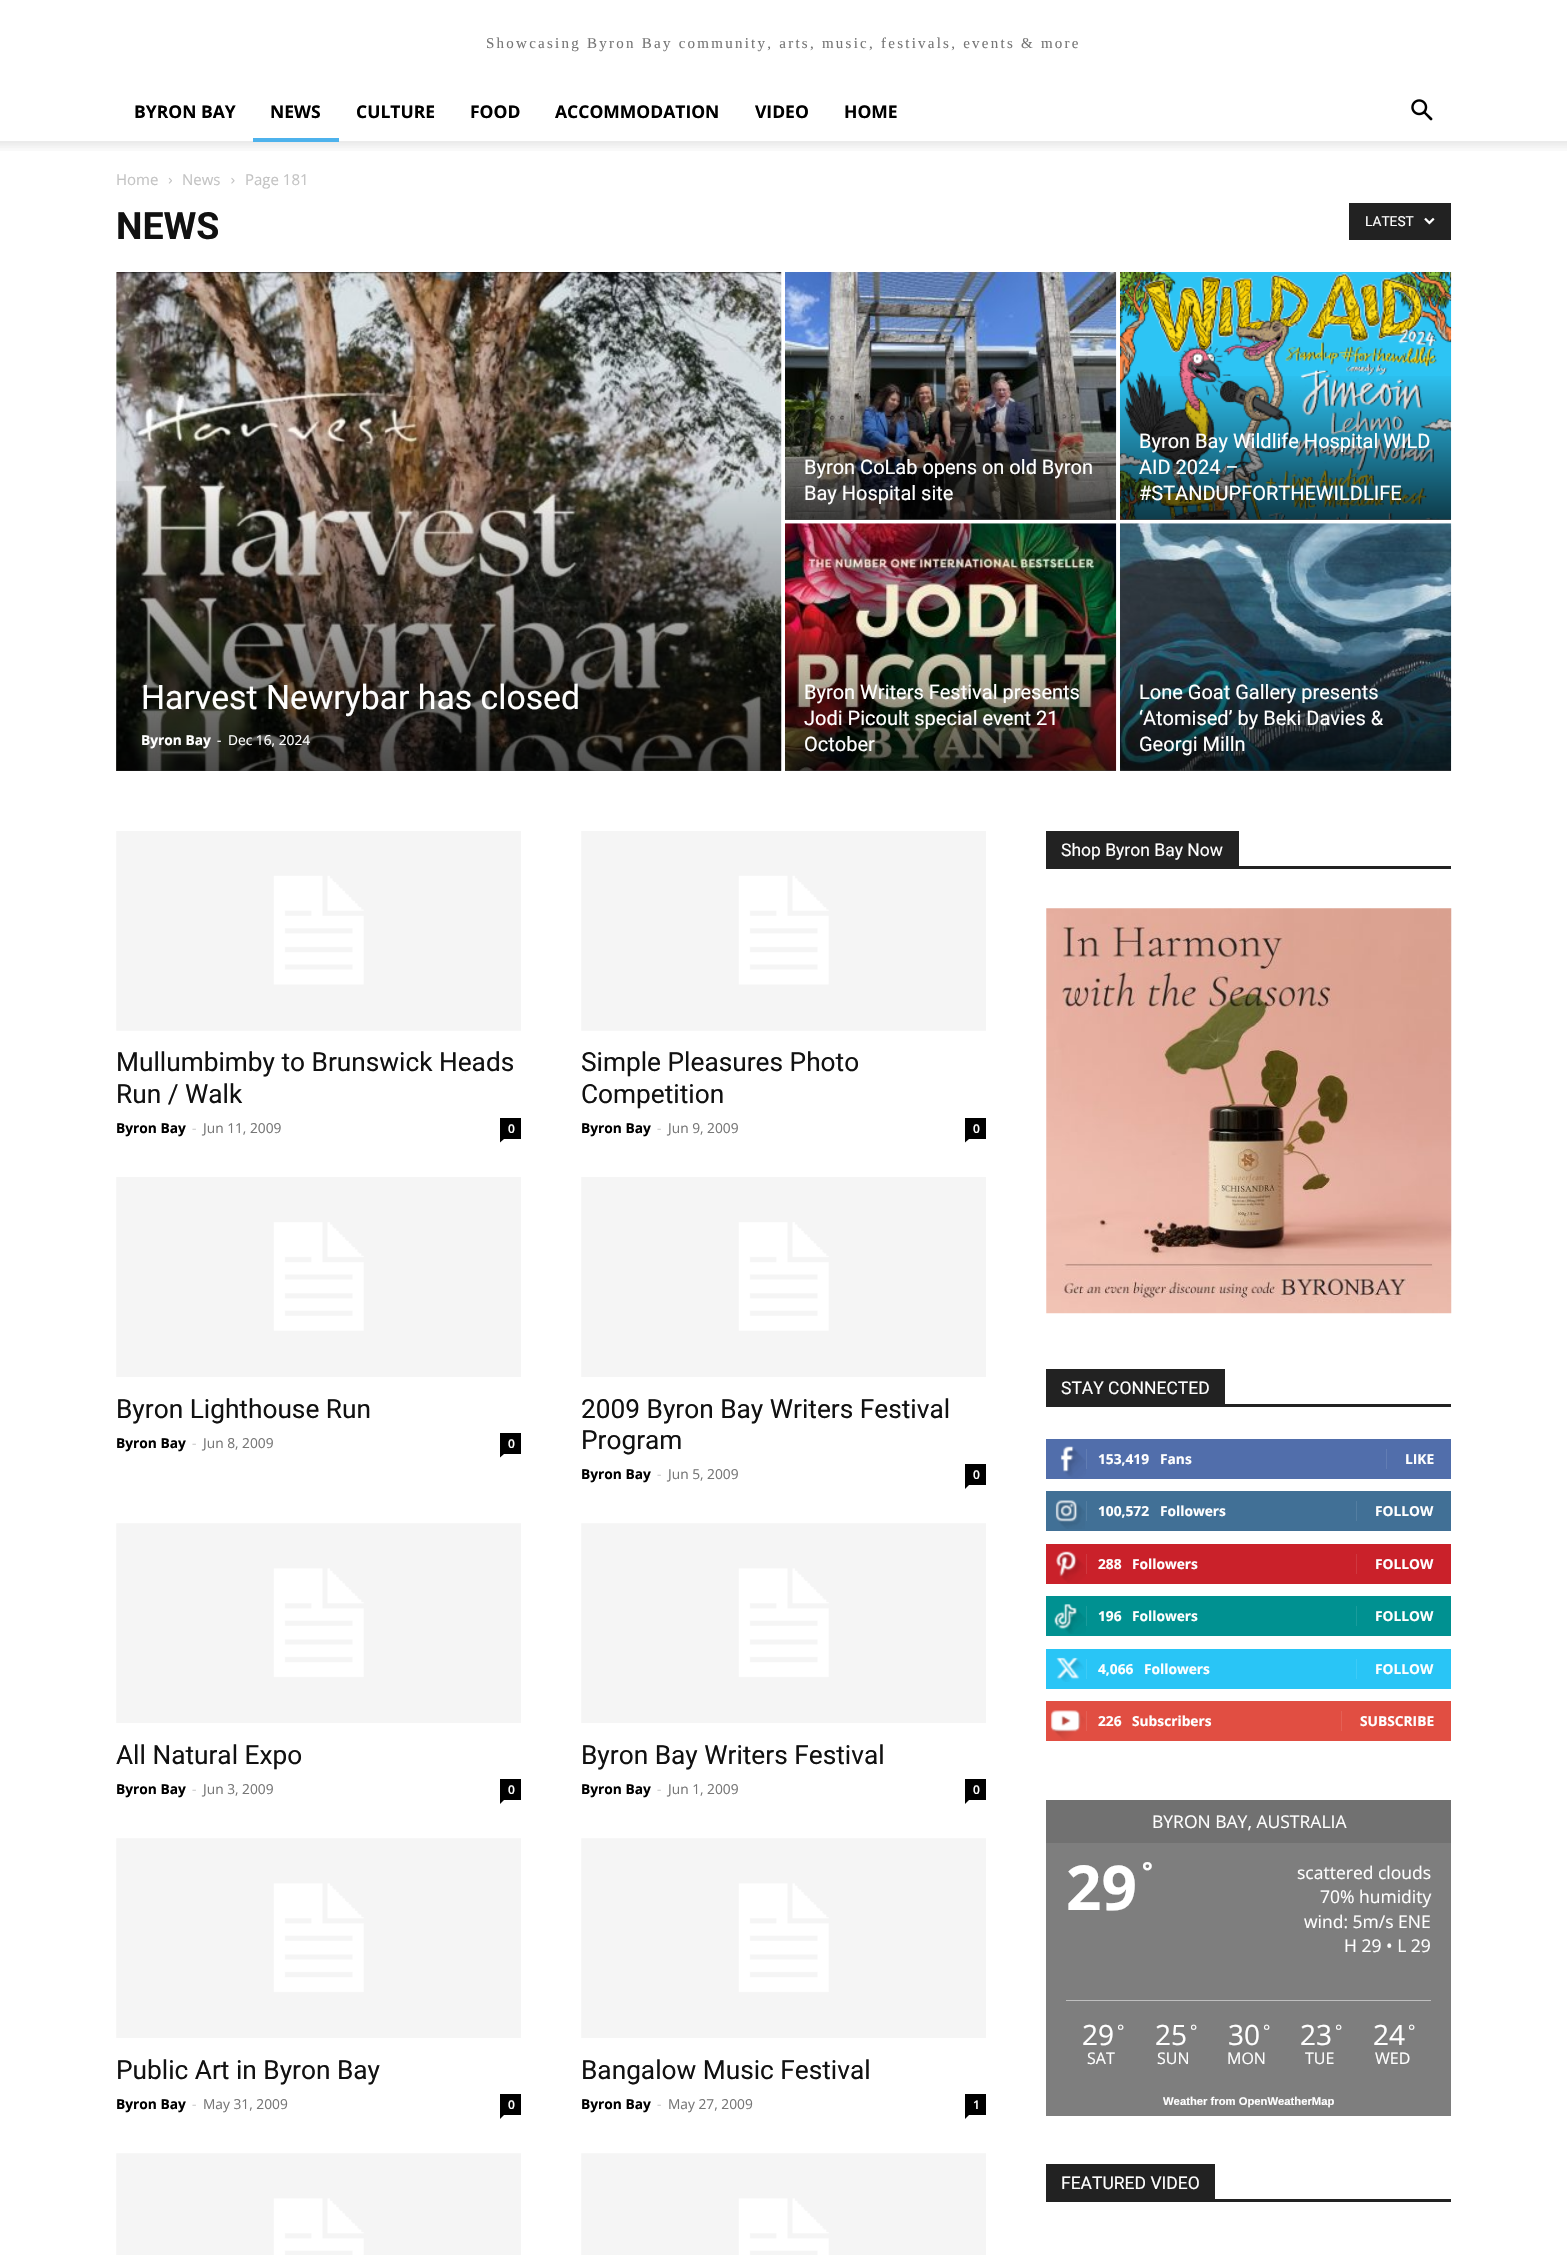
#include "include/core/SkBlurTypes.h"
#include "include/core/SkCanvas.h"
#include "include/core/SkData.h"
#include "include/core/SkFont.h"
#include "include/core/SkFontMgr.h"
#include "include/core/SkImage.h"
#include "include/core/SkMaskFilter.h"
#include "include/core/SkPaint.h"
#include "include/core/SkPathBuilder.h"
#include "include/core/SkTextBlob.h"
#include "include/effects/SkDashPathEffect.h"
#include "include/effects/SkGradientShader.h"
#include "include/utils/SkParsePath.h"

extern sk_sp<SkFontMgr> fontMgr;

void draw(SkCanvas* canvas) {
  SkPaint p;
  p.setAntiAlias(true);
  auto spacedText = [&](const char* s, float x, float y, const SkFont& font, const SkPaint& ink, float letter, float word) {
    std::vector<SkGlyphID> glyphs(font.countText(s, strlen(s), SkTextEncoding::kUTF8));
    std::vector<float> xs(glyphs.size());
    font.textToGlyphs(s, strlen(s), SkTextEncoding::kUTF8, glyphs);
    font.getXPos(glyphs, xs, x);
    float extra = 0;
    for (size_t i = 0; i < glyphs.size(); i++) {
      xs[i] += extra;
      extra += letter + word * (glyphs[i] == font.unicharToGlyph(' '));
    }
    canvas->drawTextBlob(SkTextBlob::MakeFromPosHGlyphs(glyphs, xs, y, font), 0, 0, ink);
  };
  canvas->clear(SK_ColorWHITE);
  canvas->drawImageRect(SkImages::DeferredFromEncodedData(SkData::MakeFromFileName("images/2.png")), SkRect::MakeLTRB(0, 141, 1567, 151), SkSamplingOptions());
  p.setColor(SkColorSetRGB(77, 178, 236));
  canvas->drawRect(SkRect::MakeLTRB(253, 138, 339, 142), p);
  canvas->drawImageRect(SkImages::DeferredFromEncodedData(SkData::MakeFromFileName("images/1.png")), SkRect::MakeLTRB(1411, 99, 1433, 121), SkSamplingOptions());
  canvas->drawImageRect(SkImages::DeferredFromEncodedData(SkData::MakeFromFileName("images/3.png")), SkRect::MakeLTRB(168, 177, 172, 184), SkSamplingOptions());
  canvas->drawImageRect(SkImages::DeferredFromEncodedData(SkData::MakeFromFileName("images/4.png")), SkRect::MakeLTRB(231, 177, 235, 184), SkSamplingOptions());
  p.setColor(SkColorSetRGB(34, 34, 34));
  canvas->drawRect(SkRect::MakeLTRB(1349, 203, 1451, 240), p);
  canvas->drawImageRect(SkImages::DeferredFromEncodedData(SkData::MakeFromFileName("images/5.png")), SkRect::MakeLTRB(1424, 217, 1435, 225), SkSamplingOptions());
  p.setColor(SkColorSetRGB(229, 229, 229));
  canvas->drawRect(SkRect::MakeLTRB(116, 273, 781, 771), p);
  canvas->drawImageRect(SkImages::DeferredFromEncodedData(SkData::MakeFromFileName("images/6.png")), SkRect::MakeLTRB(116, 272, 782, 771), SkSamplingOptions());
  {
    const SkColor colors[] = {SkColorSetARGB(0, 0, 0, 0), SkColorSetARGB(179, 0, 0, 0)};
    const float stops[] = {0.4f, 1};
    const SkPoint ends[] = {{449, 272}, {449, 771}};
    p.setShader(SkGradientShader::MakeLinear(ends, colors, stops, 2, SkTileMode::kClamp));
    p.setAlpha(255);
  }
  canvas->drawRect(SkRect::MakeLTRB(116, 481, 781, 771), p);
  p.setShader(nullptr);
  p.setColor(SkColorSetRGB(229, 229, 229));
  canvas->drawRect(SkRect::MakeLTRB(785, 519, 1116, 520), p);
  canvas->drawImageRect(SkImages::DeferredFromEncodedData(SkData::MakeFromFileName("images/7.png")), SkRect::MakeLTRB(785, 272, 1117, 520), SkSamplingOptions());
  {
    const SkColor colors[] = {SkColorSetARGB(0, 0, 0, 0), SkColorSetARGB(179, 0, 0, 0)};
    const float stops[] = {0.4f, 1};
    const SkPoint ends[] = {{951, 273}, {951, 520}};
    p.setShader(SkGradientShader::MakeLinear(ends, colors, stops, 2, SkTileMode::kClamp));
    p.setAlpha(255);
  }
  canvas->drawRect(SkRect::MakeLTRB(785, 376, 1116, 520), p);
  p.setShader(nullptr);
  p.setColor(SkColorSetRGB(229, 229, 229));
  canvas->drawRect(SkRect::MakeLTRB(1120, 519, 1451, 520), p);
  canvas->drawImageRect(SkImages::DeferredFromEncodedData(SkData::MakeFromFileName("images/8.png")), SkRect::MakeLTRB(1120, 272, 1452, 520), SkSamplingOptions());
  {
    const SkColor colors[] = {SkColorSetARGB(0, 0, 0, 0), SkColorSetARGB(179, 0, 0, 0)};
    const float stops[] = {0.4f, 1};
    const SkPoint ends[] = {{1286, 273}, {1286, 520}};
    p.setShader(SkGradientShader::MakeLinear(ends, colors, stops, 2, SkTileMode::kClamp));
    p.setAlpha(255);
  }
  canvas->drawRect(SkRect::MakeLTRB(1120, 376, 1451, 520), p);
  p.setShader(nullptr);
  p.setColor(SkColorSetRGB(229, 229, 229));
  canvas->drawRect(SkRect::MakeLTRB(785, 770, 1116, 771), p);
  canvas->drawImageRect(SkImages::DeferredFromEncodedData(SkData::MakeFromFileName("images/9.png")), SkRect::MakeLTRB(785, 523, 1117, 771), SkSamplingOptions());
  {
    const SkColor colors[] = {SkColorSetARGB(0, 0, 0, 0), SkColorSetARGB(179, 0, 0, 0)};
    const float stops[] = {0.4f, 1};
    const SkPoint ends[] = {{951, 524}, {951, 771}};
    p.setShader(SkGradientShader::MakeLinear(ends, colors, stops, 2, SkTileMode::kClamp));
    p.setAlpha(255);
  }
  canvas->drawRect(SkRect::MakeLTRB(785, 627, 1116, 771), p);
  p.setShader(nullptr);
  p.setColor(SkColorSetRGB(229, 229, 229));
  canvas->drawRect(SkRect::MakeLTRB(1120, 770, 1451, 771), p);
  canvas->drawImageRect(SkImages::DeferredFromEncodedData(SkData::MakeFromFileName("images/10.png")), SkRect::MakeLTRB(1120, 523, 1452, 771), SkSamplingOptions());
  {
    const SkColor colors[] = {SkColorSetARGB(0, 0, 0, 0), SkColorSetARGB(179, 0, 0, 0)};
    const float stops[] = {0.4f, 1};
    const SkPoint ends[] = {{1286, 524}, {1286, 771}};
    p.setShader(SkGradientShader::MakeLinear(ends, colors, stops, 2, SkTileMode::kClamp));
    p.setAlpha(255);
  }
  canvas->drawRect(SkRect::MakeLTRB(1120, 627, 1451, 771), p);
  canvas->drawImageRect(SkImages::DeferredFromEncodedData(SkData::MakeFromFileName("images/11.png")), SkRect::MakeLTRB(116, 831, 521, 1031), SkSamplingOptions());
  p.setShader(nullptr);
  p.setColor(SK_ColorBLACK);
  canvas->drawRect(SkRect::MakeLTRB(500, 1118, 521, 1139), p);
  canvas->drawPath(SkPathBuilder().moveTo(500, 1139).lineTo(504, 1139).lineTo(500, 1142.5f).close().detach(), p);
  canvas->drawImageRect(SkImages::DeferredFromEncodedData(SkData::MakeFromFileName("images/11.png")), SkRect::MakeLTRB(581, 831, 986, 1031), SkSamplingOptions());
  canvas->drawRect(SkRect::MakeLTRB(965, 1118, 986, 1139), p);
  canvas->drawPath(SkPathBuilder().moveTo(965, 1139).lineTo(969, 1139).lineTo(965, 1142.5f).close().detach(), p);
  canvas->drawImageRect(SkImages::DeferredFromEncodedData(SkData::MakeFromFileName("images/12.png")), SkRect::MakeLTRB(116, 1177, 521, 1377), SkSamplingOptions());
  canvas->drawRect(SkRect::MakeLTRB(500, 1433, 521, 1454), p);
  canvas->drawPath(SkPathBuilder().moveTo(500, 1454).lineTo(504, 1454).lineTo(500, 1457.5f).close().detach(), p);
  canvas->drawImageRect(SkImages::DeferredFromEncodedData(SkData::MakeFromFileName("images/12.png")), SkRect::MakeLTRB(581, 1177, 986, 1377), SkSamplingOptions());
  canvas->drawRect(SkRect::MakeLTRB(965, 1464, 986, 1485), p);
  canvas->drawPath(SkPathBuilder().moveTo(965, 1485).lineTo(969, 1485).lineTo(965, 1489).close().detach(), p);
  canvas->drawImageRect(SkImages::DeferredFromEncodedData(SkData::MakeFromFileName("images/13.png")), SkRect::MakeLTRB(116, 1523, 521, 1723), SkSamplingOptions());
  canvas->drawRect(SkRect::MakeLTRB(500, 1779, 521, 1800), p);
  canvas->drawPath(SkPathBuilder().moveTo(500, 1800).lineTo(504, 1800).lineTo(500, 1804).close().detach(), p);
  canvas->drawImageRect(SkImages::DeferredFromEncodedData(SkData::MakeFromFileName("images/13.png")), SkRect::MakeLTRB(581, 1523, 986, 1723), SkSamplingOptions());
  canvas->drawRect(SkRect::MakeLTRB(965, 1779, 986, 1800), p);
  canvas->drawPath(SkPathBuilder().moveTo(965, 1800).lineTo(969, 1800).lineTo(965, 1804).close().detach(), p);
  canvas->drawImageRect(SkImages::DeferredFromEncodedData(SkData::MakeFromFileName("images/13.png")), SkRect::MakeLTRB(116, 1838, 521, 2038), SkSamplingOptions());
  canvas->drawRect(SkRect::MakeLTRB(500, 2094, 521, 2115), p);
  canvas->drawPath(SkPathBuilder().moveTo(500, 2115).lineTo(504, 2115).lineTo(500, 2119).close().detach(), p);
  canvas->drawImageRect(SkImages::DeferredFromEncodedData(SkData::MakeFromFileName("images/13.png")), SkRect::MakeLTRB(581, 1838, 986, 2038), SkSamplingOptions());
  canvas->drawRect(SkRect::MakeLTRB(965, 2094, 986, 2115), p);
  canvas->drawPath(SkPathBuilder().moveTo(965, 2115).lineTo(969, 2115).lineTo(965, 2119).close().detach(), p);
  canvas->drawImageRect(SkImages::DeferredFromEncodedData(SkData::MakeFromFileName("images/14.png")), SkRect::MakeLTRB(116, 2153, 521, 2255), SkSamplingOptions());
  canvas->drawImageRect(SkImages::DeferredFromEncodedData(SkData::MakeFromFileName("images/14.png")), SkRect::MakeLTRB(581, 2153, 986, 2255), SkSamplingOptions());
  p.setColor(SkColorSetRGB(34, 34, 34));
  canvas->drawRect(SkRect::MakeLTRB(1046, 866, 1451, 869), p);
  canvas->drawRect(SkRect::MakeLTRB(1046, 831, 1239, 866), p);
  canvas->drawImageRect(SkImages::DeferredFromEncodedData(SkData::MakeFromFileName("images/15.png")), SkRect::MakeLTRB(1046, 908, 1452, 1314), SkSamplingOptions());
  canvas->drawRect(SkRect::MakeLTRB(1046, 1404, 1451, 1407), p);
  canvas->drawRect(SkRect::MakeLTRB(1046, 1369, 1225, 1404), p);
  p.setColor(SkColorSetRGB(81, 110, 171));
  canvas->drawRect(SkRect::MakeLTRB(1046, 1439, 1451, 1479), p);
  canvas->drawImageRect(SkImages::DeferredFromEncodedData(SkData::MakeFromFileName("images/16.png")), SkRect::MakeLTRB(1060, 1446, 1086, 1478), SkSamplingOptions());
  p.setColor(SkColorSetRGB(98, 125, 179));
  canvas->drawRect(SkRect::MakeLTRB(1086, 1449, 1087, 1469), p);
  canvas->drawRect(SkRect::MakeLTRB(1386, 1449, 1387, 1469), p);
  p.setColor(SkColorSetRGB(65, 112, 150));
  canvas->drawRect(SkRect::MakeLTRB(1046, 1491, 1451, 1531), p);
  canvas->drawImageRect(SkImages::DeferredFromEncodedData(SkData::MakeFromFileName("images/17.png")), SkRect::MakeLTRB(1055, 1500, 1085, 1529), SkSamplingOptions());
  p.setColor(SkColorSetRGB(84, 126, 161));
  canvas->drawRect(SkRect::MakeLTRB(1086, 1501, 1087, 1521), p);
  canvas->drawRect(SkRect::MakeLTRB(1356, 1501, 1357, 1521), p);
  p.setColor(SkColorSetRGB(202, 33, 42));
  canvas->drawRect(SkRect::MakeLTRB(1046, 1544, 1451, 1584), p);
  canvas->drawImageRect(SkImages::DeferredFromEncodedData(SkData::MakeFromFileName("images/18.png")), SkRect::MakeLTRB(1056, 1551, 1086, 1583), SkSamplingOptions());
  p.setColor(SkColorSetRGB(207, 55, 63));
  canvas->drawRect(SkRect::MakeLTRB(1086, 1554, 1087, 1574), p);
  canvas->drawRect(SkRect::MakeLTRB(1356, 1554, 1357, 1574), p);
  p.setColor(SkColorSetRGB(0, 145, 145));
  canvas->drawRect(SkRect::MakeLTRB(1046, 1596, 1451, 1636), p);
  canvas->drawImageRect(SkImages::DeferredFromEncodedData(SkData::MakeFromFileName("images/19.png")), SkRect::MakeLTRB(1054, 1604, 1086, 1634), SkSamplingOptions());
  p.setColor(SkColorSetRGB(26, 156, 156));
  canvas->drawRect(SkRect::MakeLTRB(1086, 1606, 1087, 1626), p);
  canvas->drawRect(SkRect::MakeLTRB(1356, 1606, 1357, 1626), p);
  p.setColor(SkColorSetRGB(41, 197, 246));
  canvas->drawRect(SkRect::MakeLTRB(1046, 1649, 1451, 1689), p);
  canvas->drawImageRect(SkImages::DeferredFromEncodedData(SkData::MakeFromFileName("images/20.png")), SkRect::MakeLTRB(1056, 1657, 1084, 1682), SkSamplingOptions());
  p.setColor(SkColorSetRGB(62, 203, 247));
  canvas->drawRect(SkRect::MakeLTRB(1086, 1659, 1087, 1679), p);
  canvas->drawRect(SkRect::MakeLTRB(1356, 1659, 1357, 1679), p);
  p.setColor(SkColorSetRGB(225, 78, 66));
  canvas->drawRect(SkRect::MakeLTRB(1046, 1701, 1451, 1741), p);
  canvas->drawImageRect(SkImages::DeferredFromEncodedData(SkData::MakeFromFileName("images/21.png")), SkRect::MakeLTRB(1050, 1710, 1085, 1740), SkSamplingOptions());
  p.setColor(SkColorSetRGB(228, 96, 85));
  canvas->drawRect(SkRect::MakeLTRB(1086, 1711, 1087, 1731), p);
  canvas->drawRect(SkRect::MakeLTRB(1341, 1711, 1342, 1731), p);
  p.setColor(SkColorSetRGB(126, 126, 126));
  canvas->drawRect(SkRect::MakeLTRB(1046, 1843, 1451, 2116), p);
  p.setColor(SkColorSetRGB(113, 113, 113));
  canvas->drawRect(SkRect::MakeLTRB(1046, 1800, 1451, 1843), p);
  p.setColor(SkColorSetRGB(191, 191, 191));
  canvas->drawRect(SkRect::MakeLTRB(1066, 2000, 1431, 2001), p);
  p.setColor(SkColorSetRGB(34, 34, 34));
  canvas->drawRect(SkRect::MakeLTRB(1046, 2199, 1451, 2202), p);
  canvas->drawRect(SkRect::MakeLTRB(1046, 2164, 1215, 2199), p);
  SkFont font1(fontMgr->matchFamilyStyle("Liberation Serif", SkFontStyle::Normal()), 15);
  font1.setSubpixel(true);
  p.setColor(SkColorSetRGB(118, 118, 118));
  spacedText("Showcasing Byron Bay community, arts, music, festivals, events & more", 486, 48, font1, p, 2.25f, 0);
  SkFont font2(fontMgr->matchFamilyStyle("Open Sans", SkFontStyle::Bold()), 17.5f);
  font2.setSubpixel(true);
  p.setColor(SK_ColorBLACK);
  canvas->drawString("BYRON BAY", 134, 118, font2, p);
  canvas->drawString("NEWS", 270, 118, font2, p);
  canvas->drawString("CULTURE", 356, 118, font2, p);
  canvas->drawString("FOOD", 470, 118, font2, p);
  canvas->drawString("ACCOMMODATION", 555, 118, font2, p);
  canvas->drawString("VIDEO", 755, 118, font2, p);
  canvas->drawString("HOME", 844, 118, font2, p);
  SkFont font3(fontMgr->matchFamilyStyle("Open Sans", SkFontStyle::Normal()), 15);
  font3.setSubpixel(true);
  p.setColor(SkColorSetRGB(195, 195, 195));
  canvas->drawString("Home", 116, 185, font3, p);
  canvas->drawString("News", 182, 185, font3, p);
  canvas->drawString("Page 181", 245, 185, font3, p);
  SkFont font4(fontMgr->matchFamilyStyle("Roboto", SkFontStyle::Bold()), 37.5f);
  font4.setSubpixel(true);
  p.setColor(SkColorSetRGB(17, 17, 17));
  canvas->drawString("NEWS", 116, 239, font4, p);
  SkFont font5(fontMgr->matchFamilyStyle("Roboto", SkFontStyle::Normal()), 13.75f);
  font5.setSubpixel(true);
  p.setColor(SK_ColorWHITE);
  canvas->drawString("LATEST", 1365, 226, font5, p);
  SkFont font6(fontMgr->matchFamilyStyle("Roboto", SkFontStyle::Normal()), 33.75f);
  font6.setSubpixel(true);
  canvas->drawString("Harvest Newrybar has closed", 141, 709, font6, p);
  SkFont font7(fontMgr->matchFamilyStyle("Open Sans", SkFontStyle::Bold()), 13.75f);
  font7.setSubpixel(true);
  canvas->drawString("Byron Bay", 141, 745, font7, p);
  SkFont font8(fontMgr->matchFamilyStyle("Open Sans", SkFontStyle::Normal()), 13.75f);
  font8.setSubpixel(true);
  canvas->drawString("-", 217, 745, font8, p);
  canvas->drawString("Dec 16, 2024", 228, 745, font8, p);
  SkFont font9(fontMgr->matchFamilyStyle("Roboto", SkFontStyle::Normal()), 20);
  font9.setSubpixel(true);
  canvas->drawString("Byron CoLab opens on old Byron", 804, 474, font9, p);
  canvas->drawString("Bay Hospital site", 804, 500, font9, p);
  canvas->drawString("Byron Bay Wildlife Hospital WILD", 1139, 448, font9, p);
  canvas->drawString("AID 2024 –", 1139, 474, font9, p);
  canvas->drawString("#STANDUPFORTHEWILDLIFE", 1139, 500, font9, p);
  canvas->drawString("Byron Writers Festival presents", 804, 699, font9, p);
  canvas->drawString("Jodi Picoult special event 21", 804, 725, font9, p);
  canvas->drawString("October", 804, 751, font9, p);
  canvas->drawString("Lone Goat Gallery presents", 1139, 699, font9, p);
  canvas->drawString("‘Atomised’ by Beki Davies &", 1139, 725, font9, p);
  canvas->drawString("Georgi Milln", 1139, 751, font9, p);
  SkFont font10(fontMgr->matchFamilyStyle("Roboto", SkFontStyle::Normal()), 26.25f);
  font10.setSubpixel(true);
  p.setColor(SkColorSetRGB(17, 17, 17));
  canvas->drawString("Mullumbimby to Brunswick Heads", 116, 1071, font10, p);
  canvas->drawString("Run / Walk", 116, 1103, font10, p);
  p.setColor(SK_ColorBLACK);
  canvas->drawString("Byron Bay", 116, 1133, font7, p);
  p.setColor(SkColorSetRGB(204, 204, 204));
  canvas->drawString("-", 192, 1133, font8, p);
  p.setColor(SkColorSetRGB(118, 118, 118));
  canvas->drawString("Jun 11, 2009", 203, 1133, font8, p);
  SkFont font11(fontMgr->matchFamilyStyle("Open Sans", SkFontStyle(600, SkFontStyle::kNormal_Width, SkFontStyle::kUpright_Slant)), 12);
  font11.setSubpixel(true);
  p.setColor(SK_ColorWHITE);
  canvas->drawString("0", 508, 1133, font11, p);
  p.setColor(SkColorSetRGB(17, 17, 17));
  canvas->drawString("Simple Pleasures Photo", 581, 1071, font10, p);
  canvas->drawString("Competition", 581, 1103, font10, p);
  p.setColor(SK_ColorBLACK);
  canvas->drawString("Byron Bay", 581, 1133, font7, p);
  p.setColor(SkColorSetRGB(204, 204, 204));
  canvas->drawString("-", 657, 1133, font8, p);
  p.setColor(SkColorSetRGB(118, 118, 118));
  canvas->drawString("Jun 9, 2009", 668, 1133, font8, p);
  p.setColor(SK_ColorWHITE);
  canvas->drawString("0", 973, 1133, font11, p);
  p.setColor(SkColorSetRGB(17, 17, 17));
  canvas->drawString("Byron Lighthouse Run", 116, 1418, font10, p);
  p.setColor(SK_ColorBLACK);
  canvas->drawString("Byron Bay", 116, 1448, font7, p);
  p.setColor(SkColorSetRGB(204, 204, 204));
  canvas->drawString("-", 192, 1448, font8, p);
  p.setColor(SkColorSetRGB(118, 118, 118));
  canvas->drawString("Jun 8, 2009", 203, 1448, font8, p);
  p.setColor(SK_ColorWHITE);
  canvas->drawString("0", 508, 1448, font11, p);
  p.setColor(SkColorSetRGB(17, 17, 17));
  canvas->drawString("2009 Byron Bay Writers Festival", 581, 1418, font10, p);
  canvas->drawString("Program", 581, 1449, font10, p);
  p.setColor(SK_ColorBLACK);
  canvas->drawString("Byron Bay", 581, 1479, font7, p);
  p.setColor(SkColorSetRGB(204, 204, 204));
  canvas->drawString("-", 657, 1479, font8, p);
  p.setColor(SkColorSetRGB(118, 118, 118));
  canvas->drawString("Jun 5, 2009", 668, 1479, font8, p);
  p.setColor(SK_ColorWHITE);
  canvas->drawString("0", 973, 1479, font11, p);
  p.setColor(SkColorSetRGB(17, 17, 17));
  canvas->drawString("All Natural Expo", 116, 1764, font10, p);
  p.setColor(SK_ColorBLACK);
  canvas->drawString("Byron Bay", 116, 1794, font7, p);
  p.setColor(SkColorSetRGB(204, 204, 204));
  canvas->drawString("-", 192, 1794, font8, p);
  p.setColor(SkColorSetRGB(118, 118, 118));
  canvas->drawString("Jun 3, 2009", 203, 1794, font8, p);
  p.setColor(SK_ColorWHITE);
  canvas->drawString("0", 508, 1794, font11, p);
  p.setColor(SkColorSetRGB(17, 17, 17));
  canvas->drawString("Byron Bay Writers Festival", 581, 1764, font10, p);
  p.setColor(SK_ColorBLACK);
  canvas->drawString("Byron Bay", 581, 1794, font7, p);
  p.setColor(SkColorSetRGB(204, 204, 204));
  canvas->drawString("-", 657, 1794, font8, p);
  p.setColor(SkColorSetRGB(118, 118, 118));
  canvas->drawString("Jun 1, 2009", 668, 1794, font8, p);
  p.setColor(SK_ColorWHITE);
  canvas->drawString("0", 973, 1794, font11, p);
  p.setColor(SkColorSetRGB(17, 17, 17));
  canvas->drawString("Public Art in Byron Bay", 116, 2079, font10, p);
  p.setColor(SK_ColorBLACK);
  canvas->drawString("Byron Bay", 116, 2109, font7, p);
  p.setColor(SkColorSetRGB(204, 204, 204));
  canvas->drawString("-", 192, 2109, font8, p);
  p.setColor(SkColorSetRGB(118, 118, 118));
  canvas->drawString("May 31, 2009", 203, 2109, font8, p);
  p.setColor(SK_ColorWHITE);
  canvas->drawString("0", 508, 2109, font11, p);
  p.setColor(SkColorSetRGB(17, 17, 17));
  canvas->drawString("Bangalow Music Festival", 581, 2079, font10, p);
  p.setColor(SK_ColorBLACK);
  canvas->drawString("Byron Bay", 581, 2109, font7, p);
  p.setColor(SkColorSetRGB(204, 204, 204));
  canvas->drawString("-", 657, 2109, font8, p);
  p.setColor(SkColorSetRGB(118, 118, 118));
  canvas->drawString("May 27, 2009", 668, 2109, font8, p);
  p.setColor(SK_ColorWHITE);
  canvas->drawString("1", 973, 2109, font11, p);
  SkFont font12(fontMgr->matchFamilyStyle("Roboto", SkFontStyle::Normal()), 17.5f);
  font12.setSubpixel(true);
  canvas->drawString("Shop Byron Bay Now", 1061, 856, font12, p);
  canvas->drawString("STAY CONNECTED", 1061, 1394, font12, p);
  canvas->drawString("153,419", 1098, 1464, font7, p);
  canvas->drawString("Fans", 1160, 1464, font7, p);
  canvas->drawString("LIKE", 1405, 1464, font7, p);
  canvas->drawString("100,572", 1098, 1516, font7, p);
  canvas->drawString("Followers", 1160, 1516, font7, p);
  canvas->drawString("FOLLOW", 1375, 1516, font7, p);
  canvas->drawString("288", 1098, 1569, font7, p);
  canvas->drawString("Followers", 1132, 1569, font7, p);
  canvas->drawString("FOLLOW", 1375, 1569, font7, p);
  canvas->drawString("196", 1098, 1621, font7, p);
  canvas->drawString("Followers", 1132, 1621, font7, p);
  canvas->drawString("FOLLOW", 1375, 1621, font7, p);
  canvas->drawString("4,066", 1098, 1674, font7, p);
  canvas->drawString("Followers", 1144, 1674, font7, p);
  canvas->drawString("FOLLOW", 1375, 1674, font7, p);
  canvas->drawString("226", 1098, 1726, font7, p);
  canvas->drawString("Subscribers", 1132, 1726, font7, p);
  canvas->drawString("SUBSCRIBE", 1360, 1726, font7, p);
  SkFont font13(fontMgr->matchFamilyStyle("Open Sans", SkFontStyle::Normal()), 17.5f);
  font13.setSubpixel(true);
  canvas->drawString("BYRON BAY, AUSTRALIA", 1152, 1828, font13, p);
  SkFont font14(fontMgr->matchFamilyStyle("Open Sans", SkFontStyle::Bold()), 62);
  font14.setSubpixel(true);
  canvas->drawString("29", 1066, 1910, font14, p);
  SkFont font15(fontMgr->matchFamilyStyle("Open Sans", SkFontStyle::Bold()), 25);
  font15.setSubpixel(true);
  canvas->drawString("°", 1142, 1880, font15, p);
  canvas->drawString("scattered clouds", 1297, 1879, font13, p);
  canvas->drawString("70% humidity", 1320, 1903, font13, p);
  canvas->drawString("wind: 5m/s ENE", 1304, 1928, font13, p);
  canvas->drawString("H 29 • L 29", 1344, 1952, font13, p);
  SkFont font16(fontMgr->matchFamilyStyle("Open Sans", SkFontStyle::Normal()), 28);
  font16.setSubpixel(true);
  canvas->drawString("29", 1082, 2045, font16, p);
  SkFont font17(fontMgr->matchFamilyStyle("Open Sans", SkFontStyle::Normal()), 17);
  font17.setSubpixel(true);
  canvas->drawString("°", 1117, 2037, font17, p);
  SkFont font18(fontMgr->matchFamilyStyle("Open Sans", SkFontStyle::Normal()), 16);
  font18.setSubpixel(true);
  canvas->drawString("SAT", 1087, 2064, font18, p);
  canvas->drawString("25", 1155, 2045, font16, p);
  canvas->drawString("°", 1190, 2037, font17, p);
  canvas->drawString("SUN", 1157, 2064, font18, p);
  canvas->drawString("30", 1228, 2045, font16, p);
  canvas->drawString("°", 1263, 2037, font17, p);
  canvas->drawString("MON", 1227, 2064, font18, p);
  canvas->drawString("23", 1300, 2045, font16, p);
  canvas->drawString("°", 1335, 2037, font17, p);
  canvas->drawString("TUE", 1305, 2064, font18, p);
  canvas->drawString("24", 1373, 2045, font16, p);
  canvas->drawString("°", 1408, 2037, font17, p);
  canvas->drawString("WED", 1375, 2064, font18, p);
  SkFont font19(fontMgr->matchFamilyStyle("Liberation Sans", SkFontStyle::Bold()), 11.25f);
  font19.setSubpixel(true);
  canvas->drawString("Weather from OpenWeatherMap", 1163, 2105, font19, p);
  canvas->drawString("FEATURED VIDEO", 1061, 2189, font12, p);
}
